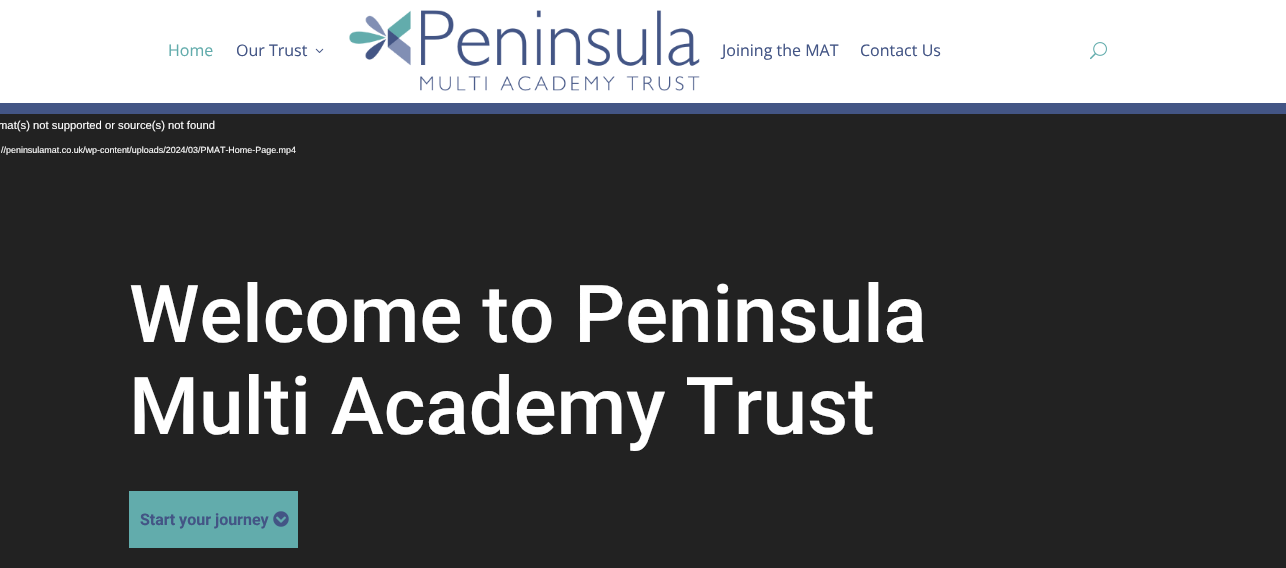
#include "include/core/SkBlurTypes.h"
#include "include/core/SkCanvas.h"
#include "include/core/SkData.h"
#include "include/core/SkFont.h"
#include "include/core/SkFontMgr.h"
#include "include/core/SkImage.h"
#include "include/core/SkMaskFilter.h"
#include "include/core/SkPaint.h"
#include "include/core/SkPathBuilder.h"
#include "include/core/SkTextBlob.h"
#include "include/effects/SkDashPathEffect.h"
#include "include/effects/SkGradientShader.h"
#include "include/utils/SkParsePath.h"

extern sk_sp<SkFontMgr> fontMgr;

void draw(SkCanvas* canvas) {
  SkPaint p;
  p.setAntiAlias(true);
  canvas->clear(SK_ColorWHITE);
  canvas->drawImageRect(SkImages::DeferredFromEncodedData(SkData::MakeFromFileName("images/1.png")), SkRect::MakeLTRB(315, 48, 324, 53), SkSamplingOptions());
  canvas->drawImageRect(SkImages::DeferredFromEncodedData(SkData::MakeFromFileName("images/2.png")), SkRect::MakeLTRB(349, 10, 700, 91), SkSamplingOptions());
  canvas->drawImageRect(SkImages::DeferredFromEncodedData(SkData::MakeFromFileName("images/3.png")), SkRect::MakeLTRB(1090, 42, 1107, 60), SkSamplingOptions());
  p.setColor(SkColorSetRGB(67, 85, 133));
  canvas->drawRect(SkRect::MakeLTRB(0, 103, 1286, 114), p);
  p.setColor(SkColorSetRGB(34, 34, 34));
  canvas->drawRect(SkRect::MakeLTRB(0, 114, 1286, 568), p);
  p.setColor(SkColorSetRGB(98, 172, 172));
  canvas->drawRect(SkRect::MakeLTRB(129, 491, 298, 548), p);
  canvas->drawImageRect(SkImages::DeferredFromEncodedData(SkData::MakeFromFileName("images/4.png")), SkRect::MakeLTRB(273, 511, 289, 527), SkSamplingOptions());
  SkFont font1(fontMgr->matchFamilyStyle("Open Sans", SkFontStyle::Normal()), 16);
  font1.setSubpixel(true);
  canvas->drawString("Home", 168, 56, font1, p);
  p.setColor(SkColorSetRGB(67, 85, 133));
  canvas->drawString("Our Trust", 236, 56, font1, p);
  canvas->drawString("Joining the MAT", 722, 56, font1, p);
  canvas->drawString("Contact Us", 860, 56, font1, p);
  SkFont font2(fontMgr->matchFamilyStyle("Liberation Sans", SkFontStyle::Normal()), 11.25f);
  font2.setSubpixel(true);
  p.setColor(SK_ColorWHITE);
  canvas->drawString("mat(s) not supported or source(s) not found", -2, 129, font2, p);
  SkFont font3(fontMgr->matchFamilyStyle("Liberation Sans", SkFontStyle::Normal()), 8.95f);
  font3.setSubpixel(true);
  canvas->drawString("//peninsulamat.co.uk/wp-content/uploads/2024/03/PMAT-Home-Page.mp4", 1, 153, font3, p);
  SkFont font4(fontMgr->matchFamilyStyle("Roboto", SkFontStyle(500, SkFontStyle::kNormal_Width, SkFontStyle::kUpright_Slant)), 80);
  font4.setSubpixel(true);
  canvas->drawString("Welcome to Peninsula", 129, 342, font4, p);
  canvas->drawString("Multi Academy Trust", 129, 434, font4, p);
  SkFont font5(fontMgr->matchFamilyStyle("Roboto", SkFontStyle::Bold()), 16);
  font5.setSubpixel(true);
  p.setColor(SkColorSetRGB(67, 85, 133));
  canvas->drawString("Start your journey", 140, 525, font5, p);
}
